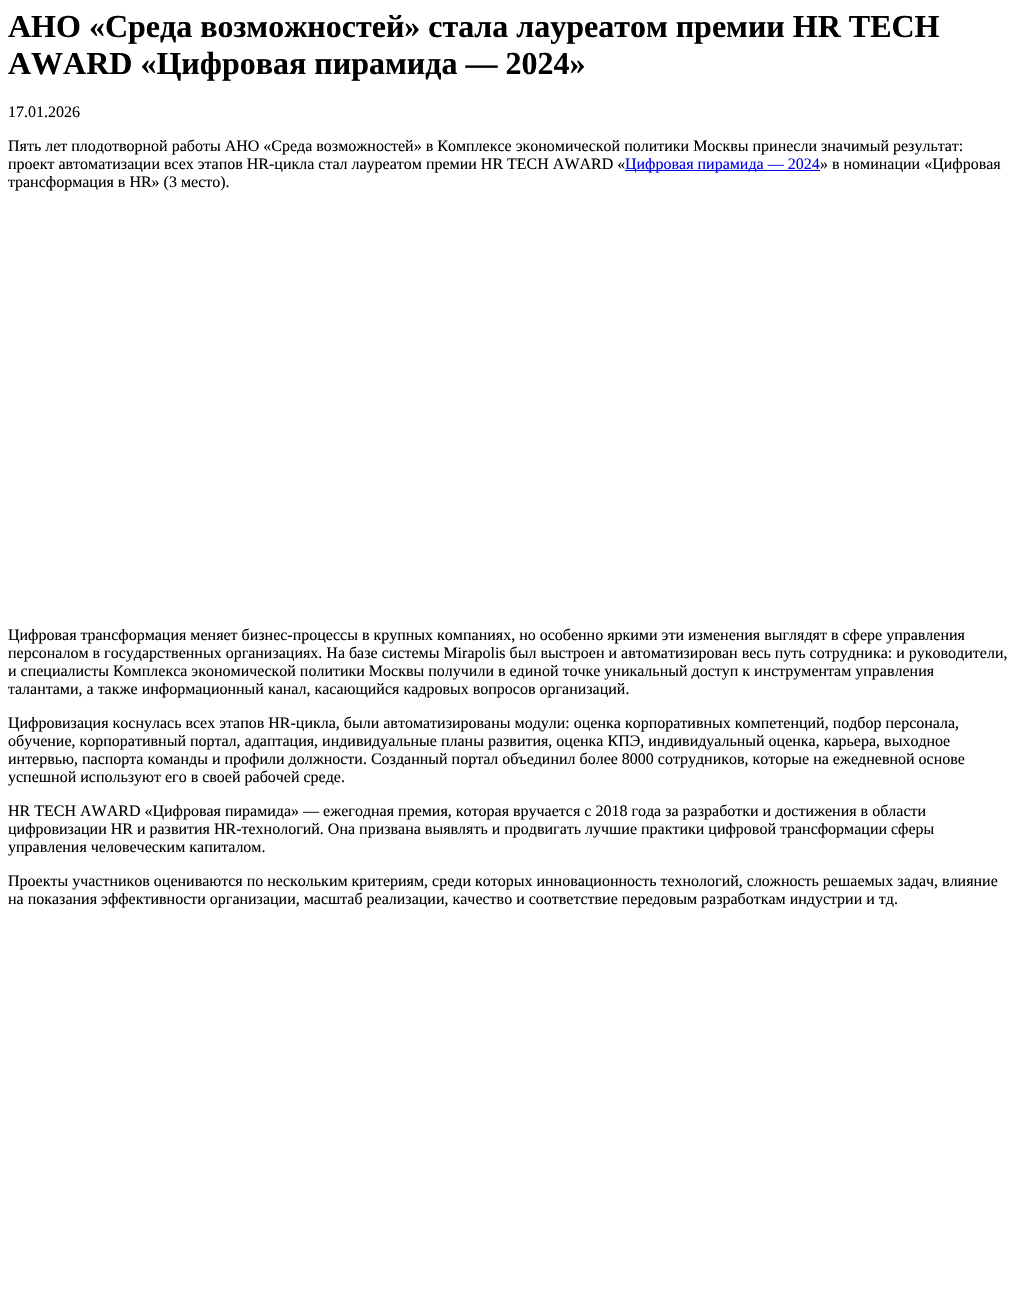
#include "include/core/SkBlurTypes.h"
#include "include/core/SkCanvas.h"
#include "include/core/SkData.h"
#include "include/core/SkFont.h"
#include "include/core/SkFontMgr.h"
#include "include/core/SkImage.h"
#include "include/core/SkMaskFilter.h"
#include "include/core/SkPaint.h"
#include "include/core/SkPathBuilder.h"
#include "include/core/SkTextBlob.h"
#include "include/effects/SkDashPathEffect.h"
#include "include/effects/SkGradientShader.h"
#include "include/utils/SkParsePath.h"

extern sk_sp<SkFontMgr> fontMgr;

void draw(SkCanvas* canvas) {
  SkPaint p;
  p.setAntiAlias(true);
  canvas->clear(SK_ColorWHITE);
  p.setColor(SkColorSetRGB(0, 0, 238));
  canvas->drawRect(SkRect::MakeLTRB(625, 170, 820, 171), p);
  SkFont font1(fontMgr->matchFamilyStyle("Liberation Serif", SkFontStyle::Bold()), 32);
  font1.setSubpixel(true);
  p.setColor(SK_ColorBLACK);
  canvas->drawString("АНО «Среда возможностей» стала лауреатом премии HR TECH", 8, 37, font1, p);
  canvas->drawString("AWARD «Цифровая пирамида — 2024»", 8, 74, font1, p);
  SkFont font2(fontMgr->matchFamilyStyle("Liberation Serif", SkFontStyle::Normal()), 16);
  font2.setSubpixel(true);
  canvas->drawString("17.01.2026", 8, 117, font2, p);
  canvas->drawString("Пять лет плодотворной работы АНО «Среда возможностей» в Комплексе экономической политики Москвы принесли значимый результат:", 8, 151, font2, p);
  canvas->drawString("проект автоматизации всех этапов HR-цикла стал лауреатом премии HR TECH AWARD «", 8, 169, font2, p);
  p.setColor(SkColorSetRGB(0, 0, 238));
  canvas->drawString("Цифровая пирамида — 2024", 625, 169, font2, p);
  p.setColor(SK_ColorBLACK);
  canvas->drawString("» в номинации «Цифровая", 820, 169, font2, p);
  canvas->drawString("трансформация в HR» (3 место).", 8, 187, font2, p);
  canvas->drawString("Цифровая трансформация меняет бизнес-процессы в крупных компаниях, но особенно яркими эти изменения выглядят в сфере управления", 8, 640, font2, p);
  canvas->drawString("персоналом в государственных организациях. На базе системы Mirapolis был выстроен и автоматизирован весь путь сотрудника: и руководители,", 8, 658, font2, p);
  canvas->drawString("и специалисты Комплекса экономической политики Москвы получили в единой точке уникальный доступ к инструментам управления", 8, 676, font2, p);
  canvas->drawString("талантами, а также информационный канал, касающийся кадровых вопросов организаций.", 8, 694, font2, p);
  canvas->drawString("Цифровизация коснулась всех этапов HR-цикла, были автоматизированы модули: оценка корпоративных компетенций, подбор персонала,", 8, 728, font2, p);
  canvas->drawString("обучение, корпоративный портал, адаптация, индивидуальные планы развития, оценка КПЭ, индивидуальный оценка, карьера, выходное", 8, 746, font2, p);
  canvas->drawString("интервью, паспорта команды и профили должности. Созданный портал объединил более 8000 сотрудников, которые на ежедневной основе", 8, 764, font2, p);
  canvas->drawString("успешной используют его в своей рабочей среде.", 8, 782, font2, p);
  canvas->drawString("HR TECH AWARD «Цифровая пирамида» — ежегодная премия, которая вручается с 2018 года за разработки и достижения в области", 8, 816, font2, p);
  canvas->drawString("цифровизации HR и развития HR-технологий. Она призвана выявлять и продвигать лучшие практики цифровой трансформации сферы", 8, 834, font2, p);
  canvas->drawString("управления человеческим капиталом.", 8, 852, font2, p);
  canvas->drawString("Проекты участников оцениваются по нескольким критериям, среди которых инновационность технологий, сложность решаемых задач, влияние", 8, 886, font2, p);
  canvas->drawString("на показания эффективности организации, масштаб реализации, качество и соответствие передовым разработкам индустрии и тд.", 8, 904, font2, p);
}
